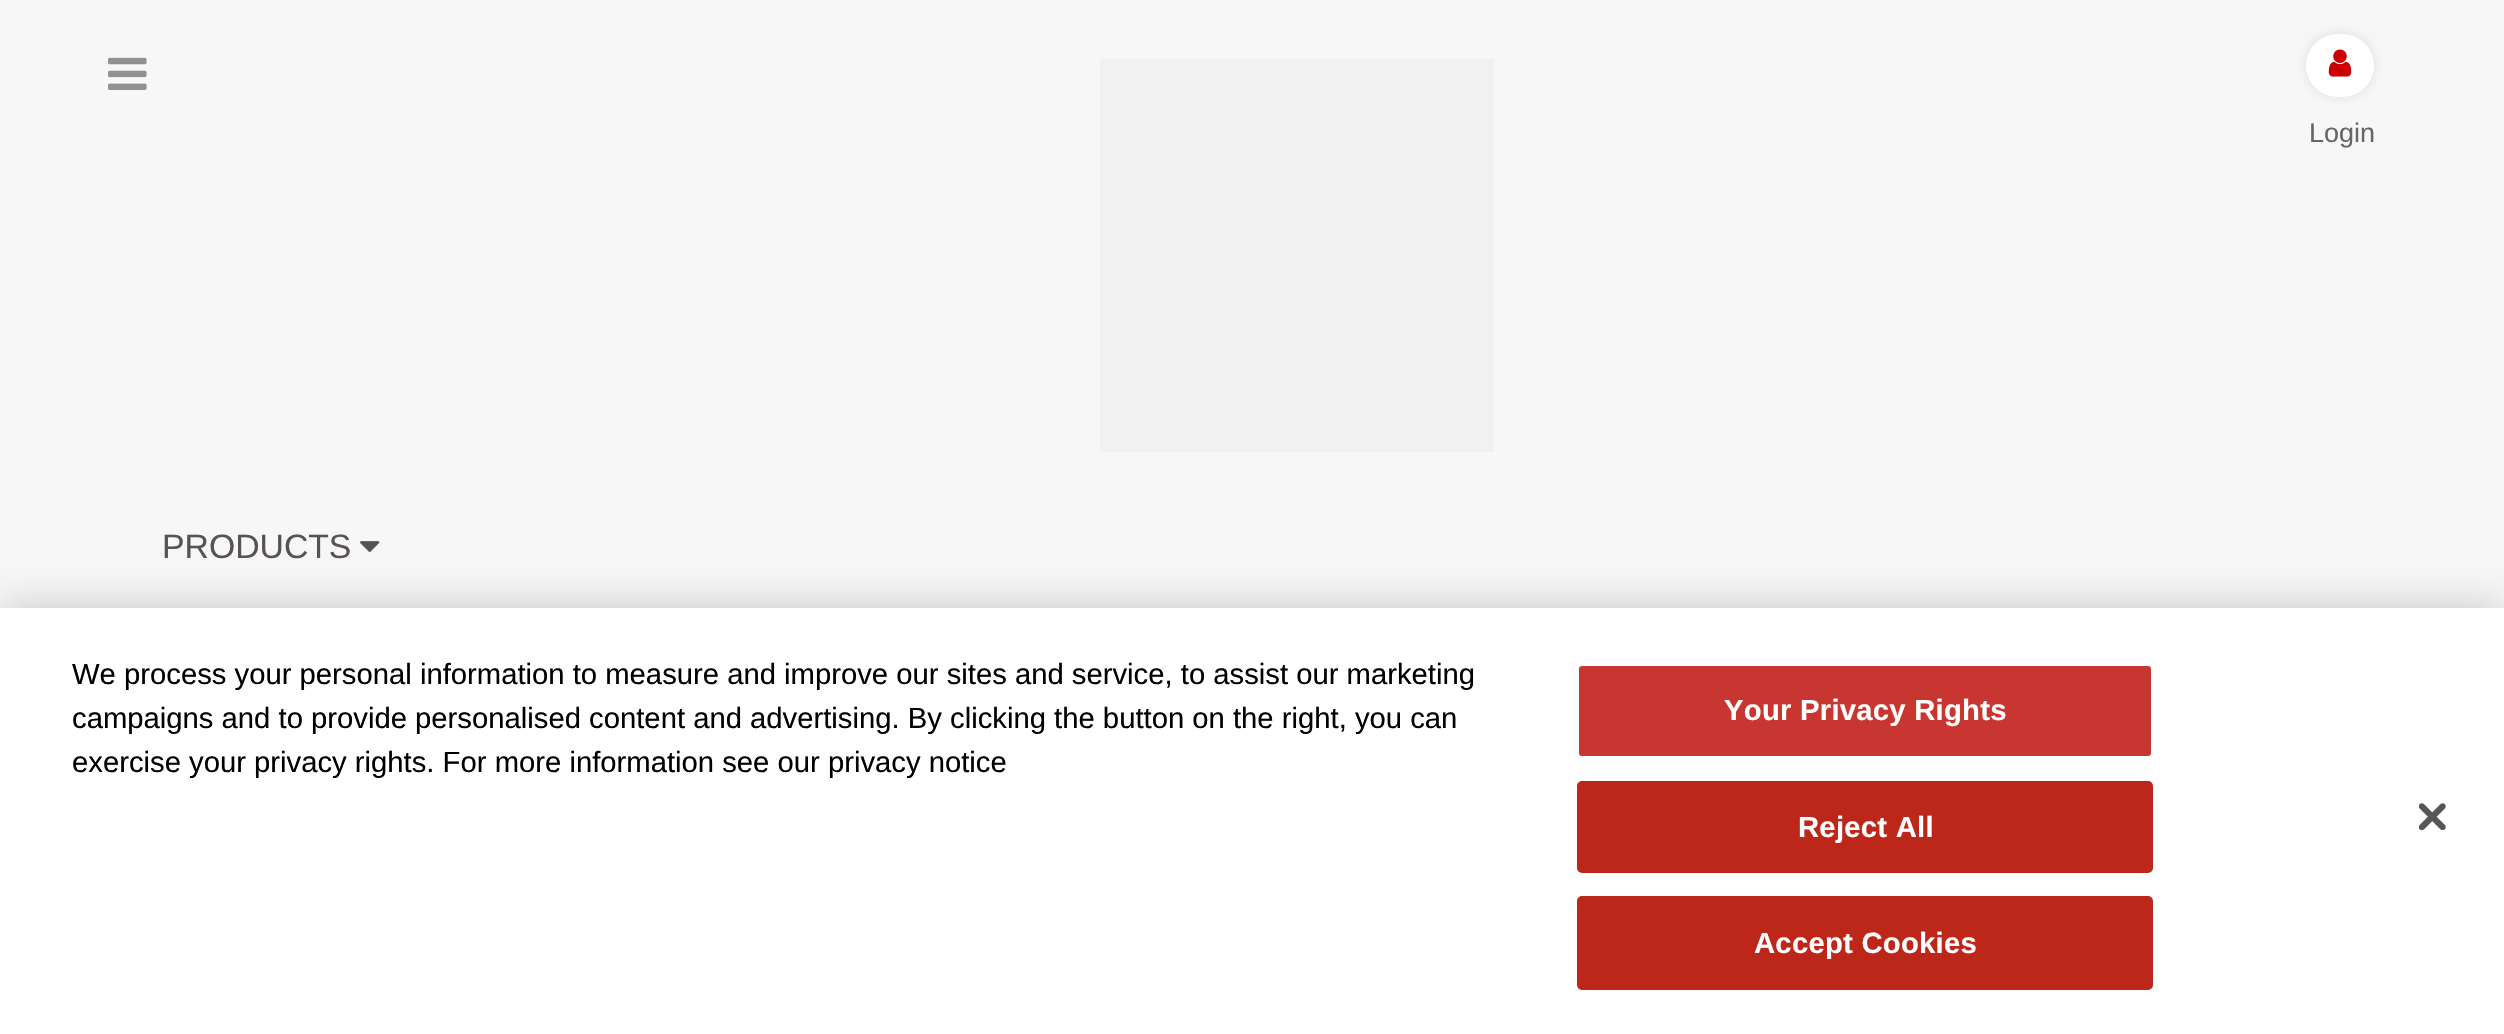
#include "include/core/SkBlurTypes.h"
#include "include/core/SkCanvas.h"
#include "include/core/SkData.h"
#include "include/core/SkFont.h"
#include "include/core/SkFontMgr.h"
#include "include/core/SkImage.h"
#include "include/core/SkMaskFilter.h"
#include "include/core/SkPaint.h"
#include "include/core/SkPathBuilder.h"
#include "include/core/SkTextBlob.h"
#include "include/effects/SkDashPathEffect.h"
#include "include/effects/SkGradientShader.h"
#include "include/utils/SkParsePath.h"

extern sk_sp<SkFontMgr> fontMgr;

void draw(SkCanvas* canvas) {
  SkPaint p;
  p.setAntiAlias(true);
  auto spacedText = [&](const char* s, float x, float y, const SkFont& font, const SkPaint& ink, float letter, float word) {
    std::vector<SkGlyphID> glyphs(font.countText(s, strlen(s), SkTextEncoding::kUTF8));
    std::vector<float> xs(glyphs.size());
    font.textToGlyphs(s, strlen(s), SkTextEncoding::kUTF8, glyphs);
    font.getXPos(glyphs, xs, x);
    float extra = 0;
    for (size_t i = 0; i < glyphs.size(); i++) {
      xs[i] += extra;
      extra += letter + word * (glyphs[i] == font.unicharToGlyph(' '));
    }
    canvas->drawTextBlob(SkTextBlob::MakeFromPosHGlyphs(glyphs, xs, y, font), 0, 0, ink);
  };
  canvas->clear(SkColorSetRGB(247, 247, 247));
  canvas->drawImageRect(SkImages::DeferredFromEncodedData(SkData::MakeFromFileName("images/1.png")), SkRect::MakeLTRB(108, 57, 147, 90), SkSamplingOptions());
  p.setColor(SkColorSetRGB(241, 241, 241));
  canvas->drawRect(SkRect::MakeLTRB(1100, 59, 1494, 452), p);
  p.setColor(SkColorSetRGB(234, 236, 236));
  p.setMaskFilter(SkMaskFilter::MakeBlur(kNormal_SkBlurStyle, 3.5f));
  canvas->drawRoundRect(SkRect::MakeLTRB(2302, 29, 2378, 101), 36, 36, p);
  p.setMaskFilter(nullptr);
  p.setColor(SK_ColorWHITE);
  canvas->drawRoundRect(SkRect::MakeLTRB(2306, 34, 2374, 97), 31.5f, 31.5f, p);
  canvas->drawImageRect(SkImages::DeferredFromEncodedData(SkData::MakeFromFileName("images/2.png")), SkRect::MakeLTRB(2328, 49, 2352, 77), SkSamplingOptions());
  canvas->drawImageRect(SkImages::DeferredFromEncodedData(SkData::MakeFromFileName("images/3.png")), SkRect::MakeLTRB(360, 541, 380, 552), SkSamplingOptions());
  p.setColor(SkColorSetARGB(51, 0, 0, 0));
  p.setMaskFilter(SkMaskFilter::MakeBlur(kNormal_SkBlurStyle, 20));
  canvas->drawRect(SkRect::MakeLTRB(0, 608, 2504, 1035), p);
  p.setMaskFilter(nullptr);
  p.setColor(SK_ColorWHITE);
  canvas->drawRect(SkRect::MakeLTRB(0, 608, 2504, 1034), p);
  p.setColor(SkColorSetRGB(199, 54, 49));
  canvas->drawRoundRect(SkRect::MakeLTRB(1578, 665, 2152, 757), 4, 4, p);
  p.setStyle(SkPaint::kStroke_Style);
  p.setStrokeWidth(2);
  p.setColor(SK_ColorWHITE);
  canvas->drawRoundRect(SkRect::MakeLTRB(1578, 665, 2152, 757), 4, 4, p);
  p.setStyle(SkPaint::kFill_Style);
  p.setColor(SkColorSetRGB(188, 39, 26));
  canvas->drawRoundRect(SkRect::MakeLTRB(1578, 782, 2152, 872), 4, 4, p);
  p.setStyle(SkPaint::kStroke_Style);
  canvas->drawRoundRect(SkRect::MakeLTRB(1578, 782, 2152, 872), 4, 4, p);
  p.setStyle(SkPaint::kFill_Style);
  canvas->drawRoundRect(SkRect::MakeLTRB(1578, 897, 2152, 989), 4, 4, p);
  p.setStyle(SkPaint::kStroke_Style);
  canvas->drawRoundRect(SkRect::MakeLTRB(1578, 897, 2152, 989), 4, 4, p);
  canvas->drawImageRect(SkImages::DeferredFromEncodedData(SkData::MakeFromFileName("images/4.png")), SkRect::MakeLTRB(2419, 803, 2446, 830), SkSamplingOptions());
  SkFont font1(fontMgr->matchFamilyStyle("Liberation Sans", SkFontStyle::Normal()), 27);
  font1.setSubpixel(true);
  p.setStyle(SkPaint::kFill_Style);
  p.setColor(SkColorSetRGB(102, 102, 102));
  canvas->drawString("Login", 2309, 142, font1, p);
  SkFont font2(fontMgr->matchFamilyStyle("Liberation Sans", SkFontStyle::Normal()), 33.75f);
  font2.setSubpixel(true);
  p.setColor(SkColorSetRGB(88, 82, 82));
  canvas->drawString("PRODUCTS", 162, 558, font2, p);
  SkFont font3(fontMgr->matchFamilyStyle("Liberation Sans", SkFontStyle::Normal()), 29.25f);
  font3.setSubpixel(true);
  p.setColor(SK_ColorBLACK);
  canvas->drawString("We process your personal information to measure and improve our sites and service, to assist our marketing", 72, 684, font3, p);
  canvas->drawString("campaigns and to provide personalised content and advertising. By clicking the button on the right, you can", 72, 728, font3, p);
  canvas->drawString("exercise your privacy rights. For more information see our privacy notice", 72, 772, font3, p);
  SkFont font4(fontMgr->matchFamilyStyle("Liberation Sans", SkFontStyle::Bold()), 29.25f);
  font4.setSubpixel(true);
  p.setColor(SK_ColorWHITE);
  spacedText("Your Privacy Rights", 1724, 720, font4, p, 0.25f, 0);
  spacedText("Reject All", 1798, 837, font4, p, 0.25f, 0);
  spacedText("Accept Cookies", 1754, 953, font4, p, 0.25f, 0);
}
